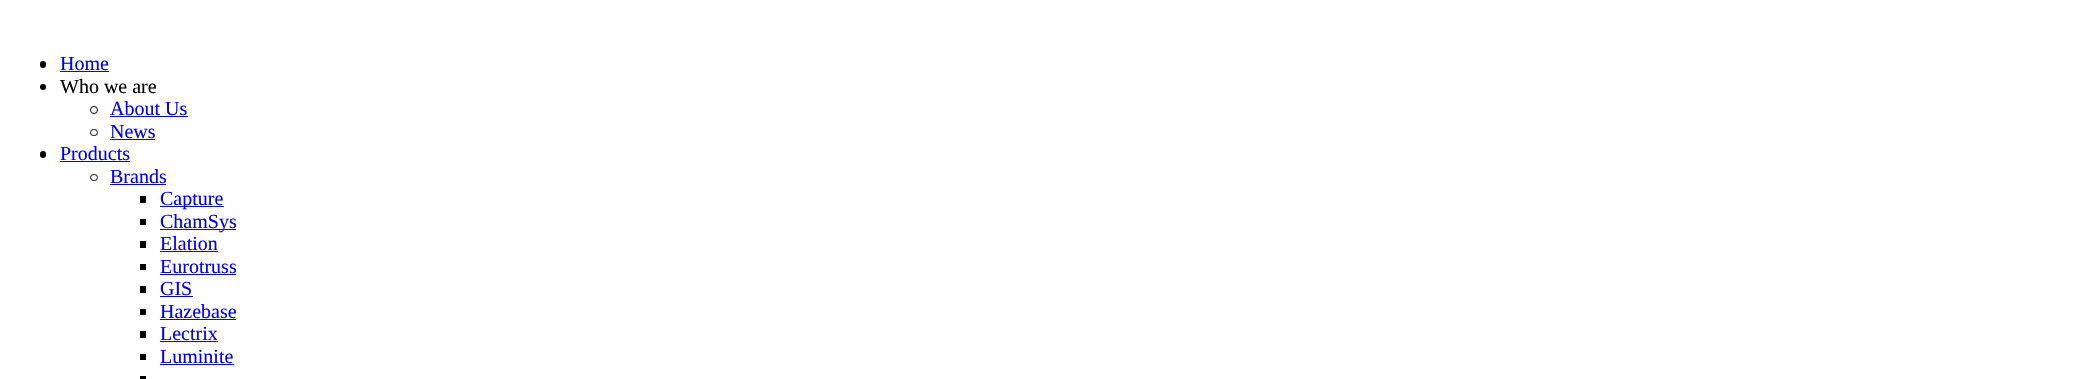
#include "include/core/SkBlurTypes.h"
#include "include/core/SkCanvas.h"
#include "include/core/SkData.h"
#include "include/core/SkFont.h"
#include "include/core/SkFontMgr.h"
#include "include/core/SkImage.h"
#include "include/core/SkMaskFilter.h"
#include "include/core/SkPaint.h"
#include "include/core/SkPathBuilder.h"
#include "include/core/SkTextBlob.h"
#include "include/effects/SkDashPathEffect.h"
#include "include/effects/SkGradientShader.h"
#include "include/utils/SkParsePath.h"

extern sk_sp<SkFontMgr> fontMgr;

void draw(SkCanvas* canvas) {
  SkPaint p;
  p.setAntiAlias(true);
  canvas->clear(SK_ColorWHITE);
  p.setColor(SK_ColorBLACK);
  canvas->drawRoundRect(SkRect::MakeLTRB(40, 61, 46, 68), 3, 3, p);
  p.setColor(SkColorSetRGB(0, 0, 238));
  canvas->drawRect(SkRect::MakeLTRB(60, 71, 109, 72), p);
  p.setColor(SK_ColorBLACK);
  canvas->drawCircle(43, 87, 3, p);
  p.setStyle(SkPaint::kStroke_Style);
  p.setStrokeWidth(1);
  canvas->drawCircle(94, 110, 3.5f, p);
  p.setStyle(SkPaint::kFill_Style);
  p.setColor(SkColorSetRGB(0, 0, 238));
  canvas->drawRect(SkRect::MakeLTRB(110, 116, 188, 117), p);
  p.setStyle(SkPaint::kStroke_Style);
  p.setColor(SK_ColorBLACK);
  canvas->drawRoundRect(SkRect::MakeLTRB(90.5f, 129.5f, 97.5f, 135.5f), 3, 3, p);
  p.setStyle(SkPaint::kFill_Style);
  p.setColor(SkColorSetRGB(0, 0, 238));
  canvas->drawRect(SkRect::MakeLTRB(110, 139, 155, 140), p);
  p.setColor(SK_ColorBLACK);
  canvas->drawRoundRect(SkRect::MakeLTRB(40, 151, 46, 158), 3, 3, p);
  p.setColor(SkColorSetRGB(0, 0, 238));
  canvas->drawRect(SkRect::MakeLTRB(60, 161, 130, 162), p);
  p.setStyle(SkPaint::kStroke_Style);
  p.setColor(SK_ColorBLACK);
  canvas->drawRoundRect(SkRect::MakeLTRB(90.5f, 174.5f, 97.5f, 180.5f), 3, 3, p);
  p.setStyle(SkPaint::kFill_Style);
  p.setColor(SkColorSetRGB(0, 0, 238));
  canvas->drawRect(SkRect::MakeLTRB(110, 184, 166, 185), p);
  p.setColor(SK_ColorBLACK);
  canvas->drawRect(SkRect::MakeLTRB(140, 196, 146, 203), p);
  p.setColor(SkColorSetRGB(0, 0, 238));
  canvas->drawRect(SkRect::MakeLTRB(160, 206, 224, 207), p);
  p.setColor(SK_ColorBLACK);
  canvas->drawRect(SkRect::MakeLTRB(140, 219, 146, 225), p);
  p.setColor(SkColorSetRGB(0, 0, 238));
  canvas->drawRect(SkRect::MakeLTRB(160, 229, 236, 230), p);
  p.setColor(SK_ColorBLACK);
  canvas->drawRect(SkRect::MakeLTRB(140, 241, 146, 248), p);
  p.setColor(SkColorSetRGB(0, 0, 238));
  canvas->drawRect(SkRect::MakeLTRB(160, 251, 218, 252), p);
  p.setColor(SK_ColorBLACK);
  canvas->drawRect(SkRect::MakeLTRB(140, 264, 146, 270), p);
  p.setColor(SkColorSetRGB(0, 0, 238));
  canvas->drawRect(SkRect::MakeLTRB(160, 274, 236, 275), p);
  p.setColor(SK_ColorBLACK);
  canvas->drawRect(SkRect::MakeLTRB(140, 286, 146, 293), p);
  p.setColor(SkColorSetRGB(0, 0, 238));
  canvas->drawRect(SkRect::MakeLTRB(160, 296, 193, 297), p);
  p.setColor(SK_ColorBLACK);
  canvas->drawRect(SkRect::MakeLTRB(140, 309, 146, 315), p);
  p.setColor(SkColorSetRGB(0, 0, 238));
  canvas->drawRect(SkRect::MakeLTRB(160, 319, 236, 320), p);
  p.setColor(SK_ColorBLACK);
  canvas->drawRect(SkRect::MakeLTRB(140, 331, 146, 338), p);
  p.setColor(SkColorSetRGB(0, 0, 238));
  canvas->drawRect(SkRect::MakeLTRB(160, 341, 218, 342), p);
  p.setColor(SK_ColorBLACK);
  canvas->drawRect(SkRect::MakeLTRB(140, 354, 146, 360), p);
  p.setColor(SkColorSetRGB(0, 0, 238));
  canvas->drawRect(SkRect::MakeLTRB(160, 364, 234, 365), p);
  p.setColor(SK_ColorBLACK);
  canvas->drawRect(SkRect::MakeLTRB(140, 376, 146, 379), p);
  SkFont font1(fontMgr->matchFamilyStyle("Liberation Serif", SkFontStyle::Normal()), 20);
  font1.setSubpixel(true);
  p.setColor(SkColorSetRGB(0, 0, 238));
  canvas->drawString("Home", 60, 70, font1, p);
  p.setColor(SK_ColorBLACK);
  canvas->drawString("Who we are", 60, 93, font1, p);
  p.setColor(SkColorSetRGB(0, 0, 238));
  canvas->drawString("About Us", 110, 115, font1, p);
  canvas->drawString("News", 110, 138, font1, p);
  canvas->drawString("Products", 60, 160, font1, p);
  canvas->drawString("Brands", 110, 183, font1, p);
  canvas->drawString("Capture", 160, 205, font1, p);
  canvas->drawString("ChamSys", 160, 228, font1, p);
  canvas->drawString("Elation", 160, 250, font1, p);
  canvas->drawString("Eurotruss", 160, 273, font1, p);
  canvas->drawString("GIS", 160, 295, font1, p);
  canvas->drawString("Hazebase", 160, 318, font1, p);
  canvas->drawString("Lectrix", 160, 340, font1, p);
  canvas->drawString("Luminite", 160, 363, font1, p);
}
